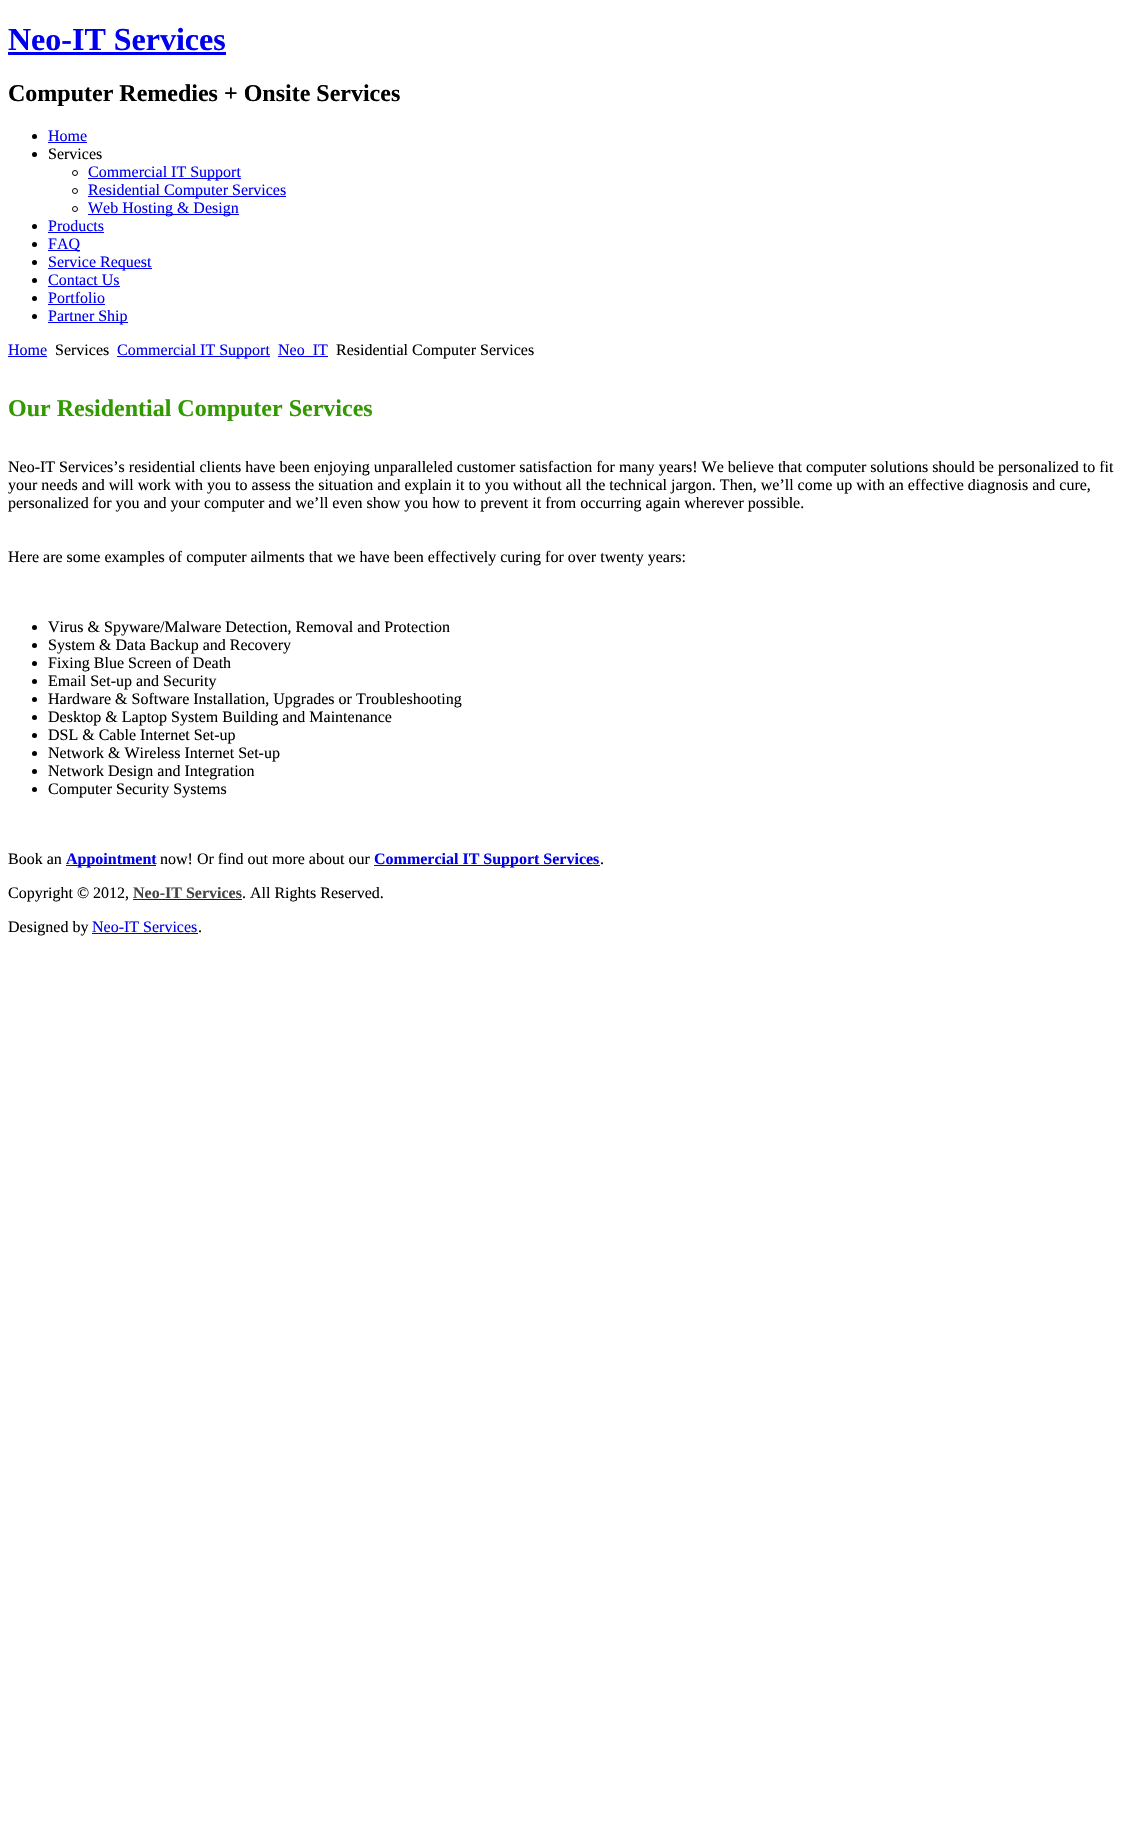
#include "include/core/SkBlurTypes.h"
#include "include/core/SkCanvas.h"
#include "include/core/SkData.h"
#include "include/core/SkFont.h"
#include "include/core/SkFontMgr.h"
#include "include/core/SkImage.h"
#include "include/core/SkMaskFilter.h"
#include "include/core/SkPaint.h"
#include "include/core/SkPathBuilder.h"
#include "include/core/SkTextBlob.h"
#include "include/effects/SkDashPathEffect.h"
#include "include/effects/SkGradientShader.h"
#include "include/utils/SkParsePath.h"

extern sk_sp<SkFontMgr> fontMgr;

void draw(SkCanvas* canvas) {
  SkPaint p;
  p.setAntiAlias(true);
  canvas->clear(SK_ColorWHITE);
  p.setColor(SkColorSetRGB(0, 0, 238));
  canvas->drawRect(SkRect::MakeLTRB(8, 52, 226, 55), p);
  p.setColor(SK_ColorBLACK);
  canvas->drawCircle(34.5f, 136.5f, 2.5f, p);
  p.setColor(SkColorSetRGB(0, 0, 238));
  canvas->drawRect(SkRect::MakeLTRB(48, 142, 87, 143), p);
  p.setColor(SK_ColorBLACK);
  canvas->drawCircle(34.5f, 154.5f, 2.5f, p);
  p.setStyle(SkPaint::kStroke_Style);
  p.setStrokeWidth(1);
  canvas->drawCircle(75, 173, 2.5f, p);
  p.setStyle(SkPaint::kFill_Style);
  p.setColor(SkColorSetRGB(0, 0, 238));
  canvas->drawRect(SkRect::MakeLTRB(88, 178, 241, 179), p);
  p.setStyle(SkPaint::kStroke_Style);
  p.setColor(SK_ColorBLACK);
  canvas->drawCircle(75, 191, 2.5f, p);
  p.setStyle(SkPaint::kFill_Style);
  p.setColor(SkColorSetRGB(0, 0, 238));
  canvas->drawRect(SkRect::MakeLTRB(88, 196, 286, 197), p);
  p.setStyle(SkPaint::kStroke_Style);
  p.setColor(SK_ColorBLACK);
  canvas->drawCircle(75, 209, 2.5f, p);
  p.setStyle(SkPaint::kFill_Style);
  p.setColor(SkColorSetRGB(0, 0, 238));
  canvas->drawRect(SkRect::MakeLTRB(88, 214, 239, 215), p);
  p.setColor(SK_ColorBLACK);
  canvas->drawCircle(34.5f, 226.5f, 2.5f, p);
  p.setColor(SkColorSetRGB(0, 0, 238));
  canvas->drawRect(SkRect::MakeLTRB(48, 232, 104, 233), p);
  p.setColor(SK_ColorBLACK);
  canvas->drawCircle(34.5f, 244.5f, 2.5f, p);
  p.setColor(SkColorSetRGB(0, 0, 238));
  canvas->drawRect(SkRect::MakeLTRB(48, 250, 80, 251), p);
  p.setColor(SK_ColorBLACK);
  canvas->drawCircle(34.5f, 262.5f, 2.5f, p);
  p.setColor(SkColorSetRGB(0, 0, 238));
  canvas->drawRect(SkRect::MakeLTRB(48, 268, 152, 269), p);
  p.setColor(SK_ColorBLACK);
  canvas->drawCircle(34.5f, 280.5f, 2.5f, p);
  p.setColor(SkColorSetRGB(0, 0, 238));
  canvas->drawRect(SkRect::MakeLTRB(48, 286, 120, 287), p);
  p.setColor(SK_ColorBLACK);
  canvas->drawCircle(34.5f, 298.5f, 2.5f, p);
  p.setColor(SkColorSetRGB(0, 0, 238));
  canvas->drawRect(SkRect::MakeLTRB(48, 304, 105, 305), p);
  p.setColor(SK_ColorBLACK);
  canvas->drawCircle(34.5f, 316.5f, 2.5f, p);
  p.setColor(SkColorSetRGB(0, 0, 238));
  canvas->drawRect(SkRect::MakeLTRB(48, 322, 128, 323), p);
  canvas->drawRect(SkRect::MakeLTRB(8, 356, 47, 357), p);
  canvas->drawRect(SkRect::MakeLTRB(117, 356, 270, 357), p);
  canvas->drawRect(SkRect::MakeLTRB(278, 356, 328, 357), p);
  p.setColor(SK_ColorBLACK);
  canvas->drawCircle(34.5f, 627.5f, 2.5f, p);
  canvas->drawCircle(34.5f, 645.5f, 2.5f, p);
  canvas->drawCircle(34.5f, 663.5f, 2.5f, p);
  canvas->drawCircle(34.5f, 681.5f, 2.5f, p);
  canvas->drawCircle(34.5f, 699.5f, 2.5f, p);
  canvas->drawCircle(34.5f, 717.5f, 2.5f, p);
  canvas->drawCircle(34.5f, 735.5f, 2.5f, p);
  canvas->drawCircle(34.5f, 753.5f, 2.5f, p);
  canvas->drawCircle(34.5f, 771.5f, 2.5f, p);
  canvas->drawCircle(34.5f, 789.5f, 2.5f, p);
  p.setColor(SkColorSetRGB(0, 0, 238));
  canvas->drawRect(SkRect::MakeLTRB(66, 865, 156, 866), p);
  canvas->drawRect(SkRect::MakeLTRB(374, 865, 600, 866), p);
  canvas->drawRect(SkRect::MakeLTRB(133, 899, 242, 900), p);
  canvas->drawRect(SkRect::MakeLTRB(92, 933, 198, 934), p);
  SkFont font1(fontMgr->matchFamilyStyle("Liberation Serif", SkFontStyle::Bold()), 32);
  font1.setSubpixel(true);
  canvas->drawString("Neo-IT Services", 8, 50, font1, p);
  SkFont font2(fontMgr->matchFamilyStyle("Liberation Serif", SkFontStyle::Bold()), 24);
  font2.setSubpixel(true);
  p.setColor(SK_ColorBLACK);
  canvas->drawString("Computer Remedies + Onsite Services", 8, 101, font2, p);
  SkFont font3(fontMgr->matchFamilyStyle("Liberation Serif", SkFontStyle::Normal()), 16);
  font3.setSubpixel(true);
  p.setColor(SkColorSetRGB(0, 0, 238));
  canvas->drawString("Home", 48, 141, font3, p);
  p.setColor(SK_ColorBLACK);
  canvas->drawString("Services", 48, 159, font3, p);
  p.setColor(SkColorSetRGB(0, 0, 238));
  canvas->drawString("Commercial IT Support", 88, 177, font3, p);
  canvas->drawString("Residential Computer Services", 88, 195, font3, p);
  canvas->drawString("Web Hosting & Design", 88, 213, font3, p);
  canvas->drawString("Products", 48, 231, font3, p);
  canvas->drawString("FAQ", 48, 249, font3, p);
  canvas->drawString("Service Request", 48, 267, font3, p);
  canvas->drawString("Contact Us", 48, 285, font3, p);
  canvas->drawString("Portfolio", 48, 303, font3, p);
  canvas->drawString("Partner Ship", 48, 321, font3, p);
  canvas->drawString("Home", 8, 355, font3, p);
  p.setColor(SK_ColorBLACK);
  canvas->drawString("Services", 55, 355, font3, p);
  p.setColor(SkColorSetRGB(0, 0, 238));
  canvas->drawString("Commercial IT Support", 117, 355, font3, p);
  canvas->drawString("Neo_IT", 278, 355, font3, p);
  p.setColor(SK_ColorBLACK);
  canvas->drawString("Residential Computer Services", 336, 355, font3, p);
  p.setColor(SkColorSetRGB(51, 153, 0));
  canvas->drawString("Our Residential Computer Services", 8, 416, font2, p);
  p.setColor(SK_ColorBLACK);
  canvas->drawString("Neo-IT Services’s residential clients have been enjoying unparalleled customer satisfaction for many years! We believe that computer solutions should be personalized to fit", 8, 472, font3, p);
  canvas->drawString("your needs and will work with you to assess the situation and explain it to you without all the technical jargon. Then, we’ll come up with an effective diagnosis and cure,", 8, 490, font3, p);
  canvas->drawString("personalized for you and your computer and we’ll even show you how to prevent it from occurring again wherever possible.", 8, 508, font3, p);
  canvas->drawString("Here are some examples of computer ailments that we have been effectively curing for over twenty years:", 8, 562, font3, p);
  canvas->drawString("Virus & Spyware/Malware Detection, Removal and Protection", 48, 632, font3, p);
  canvas->drawString("System & Data Backup and Recovery", 48, 650, font3, p);
  canvas->drawString("Fixing Blue Screen of Death", 48, 668, font3, p);
  canvas->drawString("Email Set-up and Security", 48, 686, font3, p);
  canvas->drawString("Hardware & Software Installation, Upgrades or Troubleshooting", 48, 704, font3, p);
  canvas->drawString("Desktop & Laptop System Building and Maintenance", 48, 722, font3, p);
  canvas->drawString("DSL & Cable Internet Set-up", 48, 740, font3, p);
  canvas->drawString("Network & Wireless Internet Set-up", 48, 758, font3, p);
  canvas->drawString("Network Design and Integration", 48, 776, font3, p);
  canvas->drawString("Computer Security Systems", 48, 794, font3, p);
  canvas->drawString("Book an", 8, 864, font3, p);
  SkFont font4(fontMgr->matchFamilyStyle("Liberation Serif", SkFontStyle::Bold()), 16);
  font4.setSubpixel(true);
  p.setColor(SkColorSetRGB(0, 0, 238));
  canvas->drawString("Appointment", 66, 864, font4, p);
  p.setColor(SK_ColorBLACK);
  canvas->drawString("now! Or find out more about our", 160, 864, font3, p);
  p.setColor(SkColorSetRGB(0, 0, 238));
  canvas->drawString("Commercial IT Support Services", 374, 864, font4, p);
  p.setColor(SK_ColorBLACK);
  canvas->drawString(".", 600, 864, font3, p);
  canvas->drawString("Copyright © 2012,", 8, 898, font3, p);
  p.setColor(SkColorSetRGB(67, 68, 67));
  canvas->drawString("Neo-IT Services", 133, 898, font4, p);
  p.setColor(SK_ColorBLACK);
  canvas->drawString(". All Rights Reserved.", 242, 898, font3, p);
  canvas->drawString("Designed by", 8, 932, font3, p);
  p.setColor(SkColorSetRGB(0, 0, 238));
  canvas->drawString("Neo-IT Services", 92, 932, font3, p);
  p.setColor(SK_ColorBLACK);
  canvas->drawString(".", 198, 932, font3, p);
}
